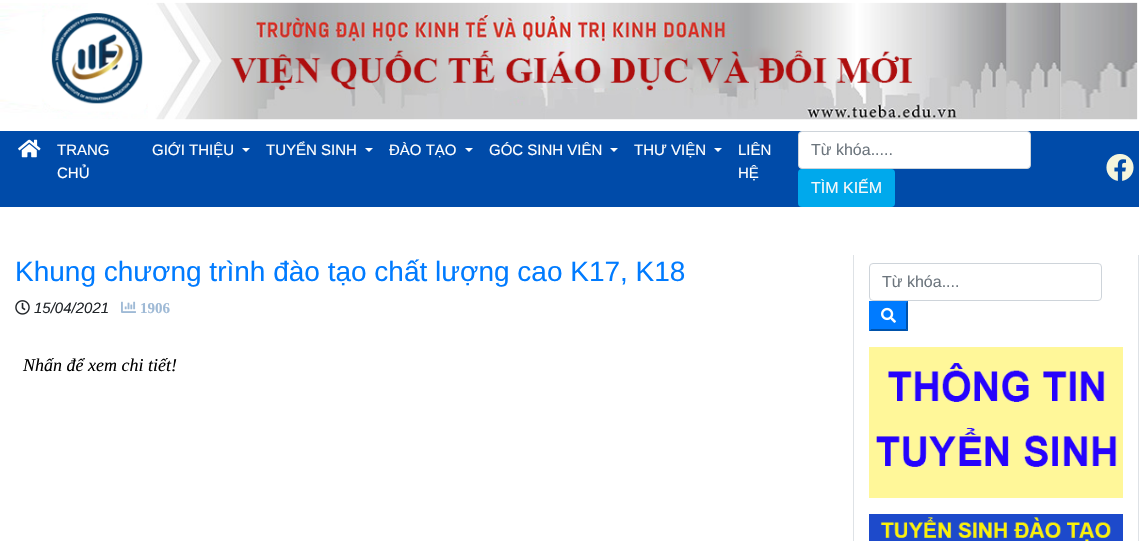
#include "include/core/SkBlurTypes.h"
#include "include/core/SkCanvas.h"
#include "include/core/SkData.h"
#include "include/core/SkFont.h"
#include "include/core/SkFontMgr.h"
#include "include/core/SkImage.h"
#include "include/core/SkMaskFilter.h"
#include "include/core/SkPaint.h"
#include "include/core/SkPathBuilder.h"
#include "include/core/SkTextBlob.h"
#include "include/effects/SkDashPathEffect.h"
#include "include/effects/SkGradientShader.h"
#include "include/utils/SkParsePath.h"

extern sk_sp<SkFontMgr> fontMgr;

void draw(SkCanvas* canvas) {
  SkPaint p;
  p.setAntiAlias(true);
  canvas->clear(SK_ColorWHITE);
  canvas->drawImageRect(SkImages::DeferredFromEncodedData(SkData::MakeFromFileName("images/1.png")), SkRect::MakeLTRB(0, 2, 1138, 120), SkSamplingOptions());
  p.setColor(SkColorSetRGB(0, 75, 169));
  canvas->drawRect(SkRect::MakeLTRB(0, 131, 1139, 207), p);
  canvas->drawImageRect(SkImages::DeferredFromEncodedData(SkData::MakeFromFileName("images/2.png")), SkRect::MakeLTRB(18, 139, 41, 158), SkSamplingOptions());
  p.setColor(SK_ColorWHITE);
  canvas->drawPath(SkPathBuilder().moveTo(242, 148).lineTo(250, 148).lineTo(246, 152).close().detach(), p);
  canvas->drawPath(SkPathBuilder().moveTo(365, 148).lineTo(373, 148).lineTo(369, 152).close().detach(), p);
  canvas->drawPath(SkPathBuilder().moveTo(465, 148).lineTo(473, 148).lineTo(469, 152).close().detach(), p);
  canvas->drawPath(SkPathBuilder().moveTo(610, 148).lineTo(618, 148).lineTo(614, 152).close().detach(), p);
  canvas->drawPath(SkPathBuilder().moveTo(714, 148).lineTo(722, 148).lineTo(718, 152).close().detach(), p);
  canvas->drawRoundRect(SkRect::MakeLTRB(798.5f, 131.5f, 1030.5f, 168.5f), 3.5f, 3.5f, p);
  p.setStyle(SkPaint::kStroke_Style);
  p.setStrokeWidth(1);
  p.setColor(SkColorSetRGB(206, 212, 218));
  canvas->drawRoundRect(SkRect::MakeLTRB(798.5f, 131.5f, 1030.5f, 168.5f), 3.5f, 3.5f, p);
  p.setStyle(SkPaint::kFill_Style);
  p.setColor(SkColorSetRGB(0, 169, 236));
  canvas->drawRoundRect(SkRect::MakeLTRB(798, 169, 895, 207), 4, 4, p);
  canvas->drawImageRect(SkImages::DeferredFromEncodedData(SkData::MakeFromFileName("images/3.png")), SkRect::MakeLTRB(1106, 154, 1134, 181), SkSamplingOptions());
  p.setColor(SkColorSetRGB(222, 226, 230));
  canvas->drawRect(SkRect::MakeLTRB(853, 255, 854, 541), p);
  canvas->drawImageRect(SkImages::DeferredFromEncodedData(SkData::MakeFromFileName("images/4.png")), SkRect::MakeLTRB(15, 300, 30, 315), SkSamplingOptions());
  canvas->drawImageRect(SkImages::DeferredFromEncodedData(SkData::MakeFromFileName("images/5.png")), SkRect::MakeLTRB(121, 301, 136, 313), SkSamplingOptions());
  canvas->drawRect(SkRect::MakeLTRB(1138, 255, 1139, 541), p);
  p.setStyle(SkPaint::kStroke_Style);
  p.setColor(SkColorSetRGB(206, 212, 218));
  canvas->drawRoundRect(SkRect::MakeLTRB(869.5f, 263.5f, 1101.5f, 300.5f), 3.5f, 3.5f, p);
  p.setStyle(SkPaint::kFill_Style);
  p.setColor(SkColorSetRGB(0, 123, 255));
  canvas->drawRect(SkRect::MakeLTRB(869, 301, 908, 331), p);
  p.setColor(SkColorSetRGB(0, 82, 170));
  canvas->drawPath(SkPathBuilder().moveTo(908, 301).lineTo(908, 331).lineTo(906, 329).lineTo(906, 303).close().detach(), p);
  canvas->drawPath(SkPathBuilder().moveTo(908, 331).lineTo(869, 331).lineTo(871, 329).lineTo(906, 329).close().detach(), p);
  p.setColor(SkColorSetRGB(0, 123, 255));
  canvas->drawPath(SkPathBuilder().moveTo(869, 331).lineTo(869, 301).lineTo(871, 303).lineTo(871, 329).close().detach(), p);
  canvas->drawImageRect(SkImages::DeferredFromEncodedData(SkData::MakeFromFileName("images/6.png")), SkRect::MakeLTRB(881, 307, 896, 323), SkSamplingOptions());
  canvas->drawImageRect(SkImages::DeferredFromEncodedData(SkData::MakeFromFileName("images/7.png")), SkRect::MakeLTRB(869, 347, 1123, 498), SkSamplingOptions());
  canvas->drawImageRect(SkImages::DeferredFromEncodedData(SkData::MakeFromFileName("images/8.png")), SkRect::MakeLTRB(869, 514, 1123, 541), SkSamplingOptions());
  SkFont font1(fontMgr->matchFamilyStyle("Liberation Sans", SkFontStyle::Normal()), 15);
  font1.setSubpixel(true);
  p.setColor(SK_ColorWHITE);
  canvas->drawString("TRANG", 57, 155, font1, p);
  canvas->drawString("CHỦ", 57, 178, font1, p);
  canvas->drawString("GIỚI THIỆU", 152, 155, font1, p);
  canvas->drawString("TUYỂN SINH", 266, 155, font1, p);
  canvas->drawString("ĐÀO TẠO", 389, 155, font1, p);
  canvas->drawString("GÓC SINH VIÊN", 489, 155, font1, p);
  canvas->drawString("THƯ VIỆN", 634, 155, font1, p);
  canvas->drawString("LIÊN", 738, 155, font1, p);
  canvas->drawString("HỆ", 738, 178, font1, p);
  SkFont font2(fontMgr->matchFamilyStyle("Liberation Sans", SkFontStyle::Normal()), 16);
  font2.setSubpixel(true);
  p.setColor(SkColorSetRGB(108, 117, 125));
  canvas->drawString("Từ khóa.....", 811, 155, font2, p);
  p.setColor(SkColorSetRGB(248, 249, 250));
  canvas->drawString("TÌM KIẾM", 811, 193, font2, p);
  SkFont font3(fontMgr->matchFamilyStyle("Liberation Sans", SkFontStyle::Normal()), 28);
  font3.setSubpixel(true);
  p.setColor(SkColorSetRGB(0, 123, 255));
  canvas->drawString("Khung chương trình đào tạo chất lượng cao K17, K18", 15, 281, font3, p);
  SkFont font4(fontMgr->matchFamilyStyle("Liberation Sans", SkFontStyle::Italic()), 15);
  font4.setSubpixel(true);
  p.setColor(SkColorSetRGB(33, 37, 41));
  canvas->drawString("15/04/2021", 34, 313, font4, p);
  SkFont font5(fontMgr->matchFamilyStyle("Liberation Serif", SkFontStyle::Bold()), 15);
  font5.setSubpixel(true);
  p.setColor(SkColorSetRGB(159, 186, 214));
  canvas->drawString("1906", 140, 313, font5, p);
  SkFont font6(fontMgr->matchFamilyStyle("Liberation Serif", SkFontStyle::Italic()), 18);
  font6.setSubpixel(true);
  p.setColor(SK_ColorBLACK);
  canvas->drawString("Nhấn để xem chi tiết!", 23, 371, font6, p);
  p.setColor(SkColorSetRGB(108, 117, 125));
  canvas->drawString("Từ khóa....", 882, 287, font2, p);
}
